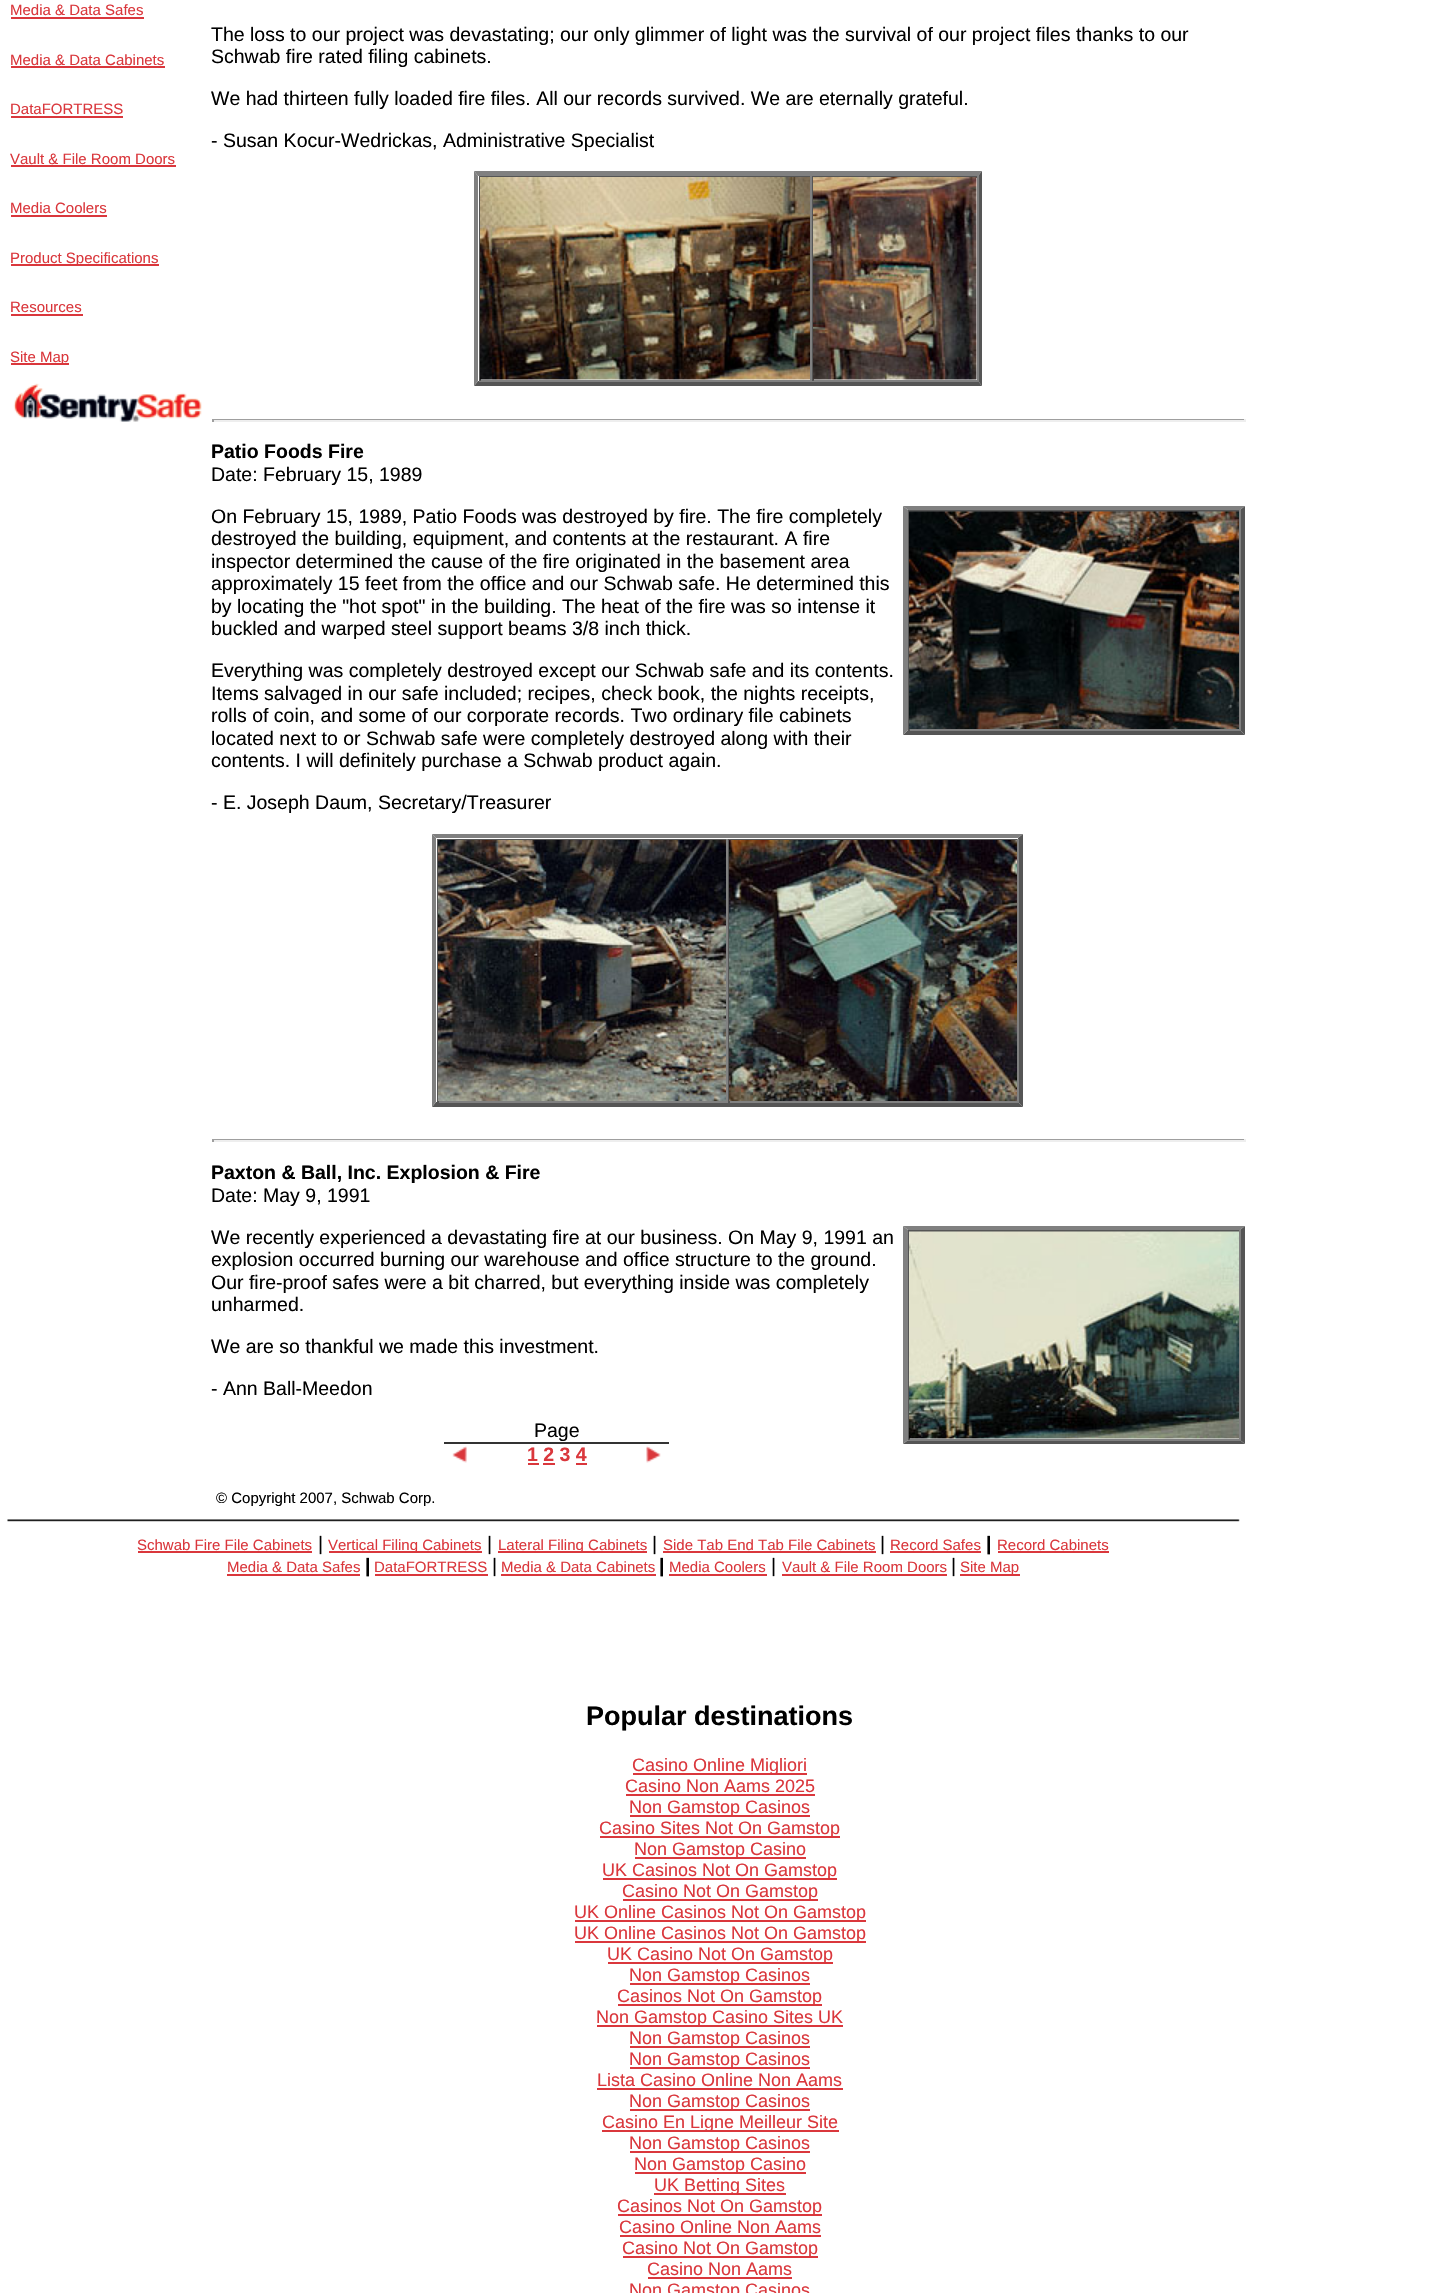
#include "include/core/SkBlurTypes.h"
#include "include/core/SkCanvas.h"
#include "include/core/SkData.h"
#include "include/core/SkFont.h"
#include "include/core/SkFontMgr.h"
#include "include/core/SkImage.h"
#include "include/core/SkMaskFilter.h"
#include "include/core/SkPaint.h"
#include "include/core/SkPathBuilder.h"
#include "include/core/SkTextBlob.h"
#include "include/effects/SkDashPathEffect.h"
#include "include/effects/SkGradientShader.h"
#include "include/utils/SkParsePath.h"

extern sk_sp<SkFontMgr> fontMgr;

void draw(SkCanvas* canvas) {
  SkPaint p;
  p.setAntiAlias(true);
  canvas->clear(SK_ColorWHITE);
  p.setColor(SkColorSetRGB(218, 55, 60));
  canvas->drawRect(SkRect::MakeLTRB(11, 17, 144, 19), p);
  canvas->drawRect(SkRect::MakeLTRB(11, 66, 165, 68), p);
  canvas->drawRect(SkRect::MakeLTRB(11, 116, 123, 118), p);
  canvas->drawRect(SkRect::MakeLTRB(11, 165, 176, 167), p);
  canvas->drawRect(SkRect::MakeLTRB(11, 215, 107, 217), p);
  canvas->drawRect(SkRect::MakeLTRB(11, 264, 159, 266), p);
  canvas->drawRect(SkRect::MakeLTRB(11, 314, 83, 316), p);
  canvas->drawRect(SkRect::MakeLTRB(11, 363, 69, 365), p);
  canvas->drawImageRect(SkImages::DeferredFromEncodedData(SkData::MakeFromFileName("images/1.png")), SkRect::MakeLTRB(13, 383, 202, 422), SkSamplingOptions());
  p.setColor(SkColorSetRGB(128, 128, 128));
  canvas->drawPath(SkPathBuilder().moveTo(474, 171).lineTo(982, 171).lineTo(978, 176).lineTo(478, 176).close().detach(), p);
  p.setColor(SkColorSetRGB(85, 85, 85));
  canvas->drawPath(SkPathBuilder().moveTo(982, 171).lineTo(982, 386).lineTo(978, 381).lineTo(978, 176).close().detach(), p);
  canvas->drawPath(SkPathBuilder().moveTo(982, 386).lineTo(474, 386).lineTo(478, 381).lineTo(978, 381).close().detach(), p);
  p.setColor(SkColorSetRGB(128, 128, 128));
  canvas->drawPath(SkPathBuilder().moveTo(474, 386).lineTo(474, 171).lineTo(478, 176).lineTo(478, 381).close().detach(), p);
  p.setColor(SkColorSetRGB(85, 85, 85));
  canvas->drawRect(SkRect::MakeLTRB(479, 176, 812, 177), p);
  p.setColor(SkColorSetRGB(128, 128, 128));
  canvas->drawRect(SkRect::MakeLTRB(810, 176, 812, 381), p);
  canvas->drawRect(SkRect::MakeLTRB(479, 380, 812, 382), p);
  p.setColor(SkColorSetRGB(85, 85, 85));
  canvas->drawRect(SkRect::MakeLTRB(479, 176, 481, 381), p);
  canvas->drawImageRect(SkImages::DeferredFromEncodedData(SkData::MakeFromFileName("images/2.png")), SkRect::MakeLTRB(480, 177, 810, 380), SkSamplingOptions());
  canvas->drawRect(SkRect::MakeLTRB(812, 176, 978, 178), p);
  p.setColor(SkColorSetRGB(128, 128, 128));
  canvas->drawRect(SkRect::MakeLTRB(977, 176, 979, 381), p);
  canvas->drawRect(SkRect::MakeLTRB(812, 380, 978, 382), p);
  p.setColor(SkColorSetRGB(85, 85, 85));
  canvas->drawRect(SkRect::MakeLTRB(812, 176, 814, 381), p);
  canvas->drawImageRect(SkImages::DeferredFromEncodedData(SkData::MakeFromFileName("images/3.png")), SkRect::MakeLTRB(813, 177, 977, 380), SkSamplingOptions());
  p.setColor(SkColorSetRGB(159, 159, 159));
  canvas->drawRect(SkRect::MakeLTRB(212, 419, 1245, 420), p);
  p.setColor(SkColorSetRGB(238, 238, 238));
  canvas->drawRect(SkRect::MakeLTRB(1244, 419, 1246, 422), p);
  canvas->drawRect(SkRect::MakeLTRB(212, 420, 1245, 422), p);
  p.setColor(SkColorSetRGB(159, 159, 159));
  canvas->drawRect(SkRect::MakeLTRB(212, 419, 214, 422), p);
  p.setColor(SkColorSetRGB(128, 128, 128));
  canvas->drawPath(SkPathBuilder().moveTo(903, 506).lineTo(1245, 506).lineTo(1240, 510).lineTo(908, 510).close().detach(), p);
  p.setColor(SkColorSetRGB(85, 85, 85));
  canvas->drawPath(SkPathBuilder().moveTo(1245, 506).lineTo(1245, 735).lineTo(1240, 730).lineTo(1240, 510).close().detach(), p);
  canvas->drawPath(SkPathBuilder().moveTo(1245, 735).lineTo(903, 735).lineTo(908, 730).lineTo(1240, 730).close().detach(), p);
  p.setColor(SkColorSetRGB(128, 128, 128));
  canvas->drawPath(SkPathBuilder().moveTo(903, 735).lineTo(903, 506).lineTo(908, 510).lineTo(908, 730).close().detach(), p);
  p.setColor(SkColorSetRGB(85, 85, 85));
  canvas->drawRect(SkRect::MakeLTRB(908, 510, 1241, 512), p);
  p.setColor(SkColorSetRGB(128, 128, 128));
  canvas->drawRect(SkRect::MakeLTRB(1239, 510, 1241, 731), p);
  canvas->drawRect(SkRect::MakeLTRB(908, 729, 1241, 731), p);
  p.setColor(SkColorSetRGB(85, 85, 85));
  canvas->drawRect(SkRect::MakeLTRB(908, 510, 910, 731), p);
  canvas->drawImageRect(SkImages::DeferredFromEncodedData(SkData::MakeFromFileName("images/4.png")), SkRect::MakeLTRB(909, 511, 1239, 729), SkSamplingOptions());
  p.setColor(SkColorSetRGB(128, 128, 128));
  canvas->drawPath(SkPathBuilder().moveTo(432, 834).lineTo(1023, 834).lineTo(1018, 838).lineTo(436, 838).close().detach(), p);
  p.setColor(SkColorSetRGB(85, 85, 85));
  canvas->drawPath(SkPathBuilder().moveTo(1023, 834).lineTo(1023, 1107).lineTo(1018, 1102).lineTo(1018, 838).close().detach(), p);
  canvas->drawPath(SkPathBuilder().moveTo(1023, 1107).lineTo(432, 1107).lineTo(436, 1102).lineTo(1018, 1102).close().detach(), p);
  p.setColor(SkColorSetRGB(128, 128, 128));
  canvas->drawPath(SkPathBuilder().moveTo(432, 1107).lineTo(432, 834).lineTo(436, 838).lineTo(436, 1102).close().detach(), p);
  p.setColor(SkColorSetRGB(85, 85, 85));
  canvas->drawRect(SkRect::MakeLTRB(437, 839, 1019, 840), p);
  p.setColor(SkColorSetRGB(128, 128, 128));
  canvas->drawRect(SkRect::MakeLTRB(726, 839, 728, 1103), p);
  canvas->drawRect(SkRect::MakeLTRB(437, 1101, 728, 1103), p);
  p.setColor(SkColorSetRGB(85, 85, 85));
  canvas->drawRect(SkRect::MakeLTRB(437, 839, 439, 1103), p);
  canvas->drawImageRect(SkImages::DeferredFromEncodedData(SkData::MakeFromFileName("images/5.png")), SkRect::MakeLTRB(438, 840, 726, 1101), SkSamplingOptions());
  p.setColor(SkColorSetRGB(128, 128, 128));
  canvas->drawRect(SkRect::MakeLTRB(1017, 839, 1019, 1103), p);
  canvas->drawRect(SkRect::MakeLTRB(728, 1101, 1019, 1103), p);
  p.setColor(SkColorSetRGB(85, 85, 85));
  canvas->drawRect(SkRect::MakeLTRB(728, 839, 730, 1103), p);
  canvas->drawImageRect(SkImages::DeferredFromEncodedData(SkData::MakeFromFileName("images/6.png")), SkRect::MakeLTRB(729, 840, 1017, 1101), SkSamplingOptions());
  p.setColor(SkColorSetRGB(159, 159, 159));
  canvas->drawRect(SkRect::MakeLTRB(212, 1139, 1245, 1140), p);
  p.setColor(SkColorSetRGB(238, 238, 238));
  canvas->drawRect(SkRect::MakeLTRB(1244, 1139, 1246, 1142), p);
  canvas->drawRect(SkRect::MakeLTRB(212, 1140, 1245, 1142), p);
  p.setColor(SkColorSetRGB(159, 159, 159));
  canvas->drawRect(SkRect::MakeLTRB(212, 1139, 214, 1142), p);
  p.setColor(SkColorSetRGB(128, 128, 128));
  canvas->drawPath(SkPathBuilder().moveTo(903, 1226).lineTo(1245, 1226).lineTo(1240, 1230).lineTo(908, 1230).close().detach(), p);
  p.setColor(SkColorSetRGB(85, 85, 85));
  canvas->drawPath(SkPathBuilder().moveTo(1245, 1226).lineTo(1245, 1444).lineTo(1240, 1440).lineTo(1240, 1230).close().detach(), p);
  canvas->drawPath(SkPathBuilder().moveTo(1245, 1444).lineTo(903, 1444).lineTo(908, 1440).lineTo(1240, 1440).close().detach(), p);
  p.setColor(SkColorSetRGB(128, 128, 128));
  canvas->drawPath(SkPathBuilder().moveTo(903, 1444).lineTo(903, 1226).lineTo(908, 1230).lineTo(908, 1440).close().detach(), p);
  p.setColor(SkColorSetRGB(85, 85, 85));
  canvas->drawRect(SkRect::MakeLTRB(908, 1230, 1241, 1232), p);
  p.setColor(SkColorSetRGB(128, 128, 128));
  canvas->drawRect(SkRect::MakeLTRB(1239, 1230, 1241, 1440), p);
  canvas->drawRect(SkRect::MakeLTRB(908, 1439, 1241, 1441), p);
  p.setColor(SkColorSetRGB(85, 85, 85));
  canvas->drawRect(SkRect::MakeLTRB(908, 1230, 910, 1440), p);
  canvas->drawImageRect(SkImages::DeferredFromEncodedData(SkData::MakeFromFileName("images/7.png")), SkRect::MakeLTRB(909, 1231, 1239, 1439), SkSamplingOptions());
  p.setColor(SkColorSetRGB(51, 51, 51));
  canvas->drawRect(SkRect::MakeLTRB(444, 1442, 669, 1444), p);
  canvas->drawImageRect(SkImages::DeferredFromEncodedData(SkData::MakeFromFileName("images/8.png")), SkRect::MakeLTRB(452, 1446, 467, 1463), SkSamplingOptions());
  p.setColor(SkColorSetRGB(218, 55, 60));
  canvas->drawRect(SkRect::MakeLTRB(528, 1463, 539, 1465), p);
  canvas->drawRect(SkRect::MakeLTRB(543, 1463, 555, 1465), p);
  canvas->drawRect(SkRect::MakeLTRB(576, 1463, 587, 1465), p);
  canvas->drawImageRect(SkImages::DeferredFromEncodedData(SkData::MakeFromFileName("images/9.png")), SkRect::MakeLTRB(646, 1446, 661, 1463), SkSamplingOptions());
  canvas->drawImageRect(SkImages::DeferredFromEncodedData(SkData::MakeFromFileName("images/10.png")), SkRect::MakeLTRB(7, 1519, 1240, 1522), SkSamplingOptions());
  canvas->drawRect(SkRect::MakeLTRB(138, 1551, 312, 1553), p);
  canvas->drawRect(SkRect::MakeLTRB(329, 1551, 482, 1553), p);
  canvas->drawRect(SkRect::MakeLTRB(498, 1551, 647, 1553), p);
  canvas->drawRect(SkRect::MakeLTRB(663, 1551, 876, 1553), p);
  canvas->drawRect(SkRect::MakeLTRB(890, 1551, 981, 1553), p);
  canvas->drawRect(SkRect::MakeLTRB(998, 1551, 1109, 1553), p);
  canvas->drawRect(SkRect::MakeLTRB(227, 1574, 360, 1576), p);
  canvas->drawRect(SkRect::MakeLTRB(375, 1574, 488, 1576), p);
  canvas->drawRect(SkRect::MakeLTRB(501, 1574, 656, 1576), p);
  canvas->drawRect(SkRect::MakeLTRB(669, 1574, 767, 1576), p);
  canvas->drawRect(SkRect::MakeLTRB(782, 1574, 947, 1576), p);
  canvas->drawRect(SkRect::MakeLTRB(960, 1574, 1020, 1576), p);
  canvas->drawRect(SkRect::MakeLTRB(633, 1773, 807, 1775), p);
  canvas->drawRect(SkRect::MakeLTRB(626, 1794, 815, 1796), p);
  canvas->drawRect(SkRect::MakeLTRB(630, 1815, 810, 1817), p);
  canvas->drawRect(SkRect::MakeLTRB(600, 1836, 840, 1838), p);
  canvas->drawRect(SkRect::MakeLTRB(635, 1857, 806, 1859), p);
  canvas->drawRect(SkRect::MakeLTRB(603, 1878, 837, 1880), p);
  canvas->drawRect(SkRect::MakeLTRB(623, 1899, 818, 1901), p);
  canvas->drawRect(SkRect::MakeLTRB(575, 1920, 866, 1922), p);
  canvas->drawRect(SkRect::MakeLTRB(575, 1941, 866, 1943), p);
  canvas->drawRect(SkRect::MakeLTRB(608, 1962, 833, 1964), p);
  canvas->drawRect(SkRect::MakeLTRB(630, 1983, 810, 1985), p);
  canvas->drawRect(SkRect::MakeLTRB(618, 2004, 822, 2006), p);
  canvas->drawRect(SkRect::MakeLTRB(597, 2025, 843, 2027), p);
  canvas->drawRect(SkRect::MakeLTRB(630, 2046, 810, 2048), p);
  canvas->drawRect(SkRect::MakeLTRB(630, 2067, 810, 2069), p);
  canvas->drawRect(SkRect::MakeLTRB(597, 2088, 843, 2090), p);
  canvas->drawRect(SkRect::MakeLTRB(630, 2109, 810, 2111), p);
  canvas->drawRect(SkRect::MakeLTRB(602, 2130, 839, 2132), p);
  canvas->drawRect(SkRect::MakeLTRB(630, 2151, 810, 2153), p);
  canvas->drawRect(SkRect::MakeLTRB(635, 2172, 806, 2174), p);
  canvas->drawRect(SkRect::MakeLTRB(654, 2193, 786, 2195), p);
  canvas->drawRect(SkRect::MakeLTRB(618, 2214, 822, 2216), p);
  canvas->drawRect(SkRect::MakeLTRB(620, 2235, 821, 2237), p);
  canvas->drawRect(SkRect::MakeLTRB(623, 2256, 818, 2258), p);
  canvas->drawRect(SkRect::MakeLTRB(648, 2277, 792, 2279), p);
  SkFont font1(fontMgr->matchFamilyStyle("Liberation Sans", SkFontStyle::Normal()), 15);
  font1.setSubpixel(true);
  canvas->drawString("Media & Data Safes", 10, 15, font1, p);
  canvas->drawString("Media & Data Cabinets", 10, 65, font1, p);
  canvas->drawString("DataFORTRESS", 10, 114, font1, p);
  canvas->drawString("Vault & File Room Doors", 10, 164, font1, p);
  canvas->drawString("Media Coolers", 10, 213, font1, p);
  canvas->drawString("Product Specifications", 10, 263, font1, p);
  canvas->drawString("Resources", 10, 312, font1, p);
  canvas->drawString("Site Map", 10, 362, font1, p);
  SkFont font2(fontMgr->matchFamilyStyle("Liberation Sans", SkFontStyle::Normal()), 19.5f);
  font2.setSubpixel(true);
  p.setColor(SK_ColorBLACK);
  canvas->drawString("The loss to our project was devastating; our only glimmer of light was the survival of our project files thanks to our", 211, 41, font2, p);
  canvas->drawString("Schwab fire rated filing cabinets.", 211, 63, font2, p);
  canvas->drawString("We had thirteen fully loaded fire files. All our records survived. We are eternally grateful.", 211, 105, font2, p);
  canvas->drawString("- Susan Kocur-Wedrickas, Administrative Specialist", 211, 147, font2, p);
  SkFont font3(fontMgr->matchFamilyStyle("Liberation Sans", SkFontStyle::Bold()), 19.5f);
  font3.setSubpixel(true);
  canvas->drawString("Patio Foods Fire", 211, 458, font3, p);
  canvas->drawString("Date: February 15, 1989", 211, 481, font2, p);
  canvas->drawString("On February 15, 1989, Patio Foods was destroyed by fire. The fire completely", 211, 523, font2, p);
  canvas->drawString("destroyed the building, equipment, and contents at the restaurant. A fire", 211, 545, font2, p);
  canvas->drawString("inspector determined the cause of the fire originated in the basement area", 211, 568, font2, p);
  canvas->drawString("approximately 15 feet from the office and our Schwab safe. He determined this", 211, 590, font2, p);
  canvas->drawString("by locating the \"hot spot\" in the building. The heat of the fire was so intense it", 211, 613, font2, p);
  canvas->drawString("buckled and warped steel support beams 3/8 inch thick.", 211, 635, font2, p);
  canvas->drawString("Everything was completely destroyed except our Schwab safe and its contents.", 211, 677, font2, p);
  canvas->drawString("Items salvaged in our safe included; recipes, check book, the nights receipts,", 211, 700, font2, p);
  canvas->drawString("rolls of coin, and some of our corporate records. Two ordinary file cabinets", 211, 722, font2, p);
  canvas->drawString("located next to or Schwab safe were completely destroyed along with their", 211, 745, font2, p);
  canvas->drawString("contents. I will definitely purchase a Schwab product again.", 211, 767, font2, p);
  canvas->drawString("- E. Joseph Daum, Secretary/Treasurer", 211, 809, font2, p);
  canvas->drawString("Paxton & Ball, Inc. Explosion & Fire", 211, 1179, font3, p);
  canvas->drawString("Date: May 9, 1991", 211, 1202, font2, p);
  canvas->drawString("We recently experienced a devastating fire at our business. On May 9, 1991 an", 211, 1244, font2, p);
  canvas->drawString("explosion occurred burning our warehouse and office structure to the ground.", 211, 1266, font2, p);
  canvas->drawString("Our fire-proof safes were a bit charred, but everything inside was completely", 211, 1289, font2, p);
  canvas->drawString("unharmed.", 211, 1311, font2, p);
  canvas->drawString("We are so thankful we made this investment.", 211, 1353, font2, p);
  canvas->drawString("- Ann Ball-Meedon", 211, 1395, font2, p);
  canvas->drawString("Page", 534, 1437, font2, p);
  p.setColor(SkColorSetRGB(218, 55, 60));
  canvas->drawString("1 2 3 4", 527, 1461, font3, p);
  p.setColor(SK_ColorBLACK);
  canvas->drawString("© Copyright 2007, Schwab Corp.", 216, 1503, font1, p);
  p.setColor(SkColorSetRGB(218, 55, 60));
  canvas->drawString("Schwab Fire File Cabinets", 137, 1550, font1, p);
  p.setColor(SK_ColorBLACK);
  canvas->drawString("|", 318, 1550, font2, p);
  p.setColor(SkColorSetRGB(218, 55, 60));
  canvas->drawString("Vertical Filing Cabinets", 328, 1550, font1, p);
  p.setColor(SK_ColorBLACK);
  canvas->drawString("|", 487, 1550, font2, p);
  p.setColor(SkColorSetRGB(218, 55, 60));
  canvas->drawString("Lateral Filing Cabinets", 498, 1550, font1, p);
  p.setColor(SK_ColorBLACK);
  canvas->drawString("|", 652, 1550, font2, p);
  p.setColor(SkColorSetRGB(218, 55, 60));
  canvas->drawString("Side Tab End Tab File Cabinets", 663, 1550, font1, p);
  p.setColor(SK_ColorBLACK);
  canvas->drawString("|", 880, 1550, font2, p);
  p.setColor(SkColorSetRGB(218, 55, 60));
  canvas->drawString("Record Safes", 890, 1550, font1, p);
  p.setColor(SK_ColorBLACK);
  canvas->drawString("|", 986, 1550, font3, p);
  p.setColor(SkColorSetRGB(218, 55, 60));
  canvas->drawString("Record Cabinets", 997, 1550, font1, p);
  canvas->drawString("Media & Data Safes", 227, 1572, font1, p);
  p.setColor(SK_ColorBLACK);
  canvas->drawString("|", 365, 1572, font3, p);
  p.setColor(SkColorSetRGB(218, 55, 60));
  canvas->drawString("DataFORTRESS", 374, 1572, font1, p);
  p.setColor(SK_ColorBLACK);
  canvas->drawString("|", 492, 1572, font2, p);
  p.setColor(SkColorSetRGB(218, 55, 60));
  canvas->drawString("Media & Data Cabinets", 501, 1572, font1, p);
  p.setColor(SK_ColorBLACK);
  canvas->drawString("|", 659, 1572, font3, p);
  p.setColor(SkColorSetRGB(218, 55, 60));
  canvas->drawString("Media Coolers", 669, 1572, font1, p);
  p.setColor(SK_ColorBLACK);
  canvas->drawString("|", 771, 1572, font2, p);
  p.setColor(SkColorSetRGB(218, 55, 60));
  canvas->drawString("Vault & File Room Doors", 782, 1572, font1, p);
  p.setColor(SK_ColorBLACK);
  canvas->drawString("|", 951, 1572, font2, p);
  p.setColor(SkColorSetRGB(218, 55, 60));
  canvas->drawString("Site Map", 960, 1572, font1, p);
  SkFont font4(fontMgr->matchFamilyStyle("Liberation Sans", SkFontStyle::Bold()), 27);
  font4.setSubpixel(true);
  p.setColor(SK_ColorBLACK);
  canvas->drawString("Popular destinations", 586, 1725, font4, p);
  SkFont font5(fontMgr->matchFamilyStyle("Liberation Sans", SkFontStyle::Normal()), 18);
  font5.setSubpixel(true);
  p.setColor(SkColorSetRGB(218, 55, 60));
  canvas->drawString("Casino Online Migliori", 632, 1771, font5, p);
  canvas->drawString("Casino Non Aams 2025", 625, 1792, font5, p);
  canvas->drawString("Non Gamstop Casinos", 629, 1813, font5, p);
  canvas->drawString("Casino Sites Not On Gamstop", 599, 1834, font5, p);
  canvas->drawString("Non Gamstop Casino", 634, 1855, font5, p);
  canvas->drawString("UK Casinos Not On Gamstop", 602, 1876, font5, p);
  canvas->drawString("Casino Not On Gamstop", 622, 1897, font5, p);
  canvas->drawString("UK Online Casinos Not On Gamstop", 574, 1918, font5, p);
  canvas->drawString("UK Online Casinos Not On Gamstop", 574, 1939, font5, p);
  canvas->drawString("UK Casino Not On Gamstop", 607, 1960, font5, p);
  canvas->drawString("Non Gamstop Casinos", 629, 1981, font5, p);
  canvas->drawString("Casinos Not On Gamstop", 617, 2002, font5, p);
  canvas->drawString("Non Gamstop Casino Sites UK", 596, 2023, font5, p);
  canvas->drawString("Non Gamstop Casinos", 629, 2044, font5, p);
  canvas->drawString("Non Gamstop Casinos", 629, 2065, font5, p);
  canvas->drawString("Lista Casino Online Non Aams", 597, 2086, font5, p);
  canvas->drawString("Non Gamstop Casinos", 629, 2107, font5, p);
  canvas->drawString("Casino En Ligne Meilleur Site", 602, 2128, font5, p);
  canvas->drawString("Non Gamstop Casinos", 629, 2149, font5, p);
  canvas->drawString("Non Gamstop Casino", 634, 2170, font5, p);
  canvas->drawString("UK Betting Sites", 654, 2191, font5, p);
  canvas->drawString("Casinos Not On Gamstop", 617, 2212, font5, p);
  canvas->drawString("Casino Online Non Aams", 619, 2233, font5, p);
  canvas->drawString("Casino Not On Gamstop", 622, 2254, font5, p);
  canvas->drawString("Casino Non Aams", 647, 2275, font5, p);
  canvas->drawString("Non Gamstop Casinos", 629, 2296, font5, p);
}
